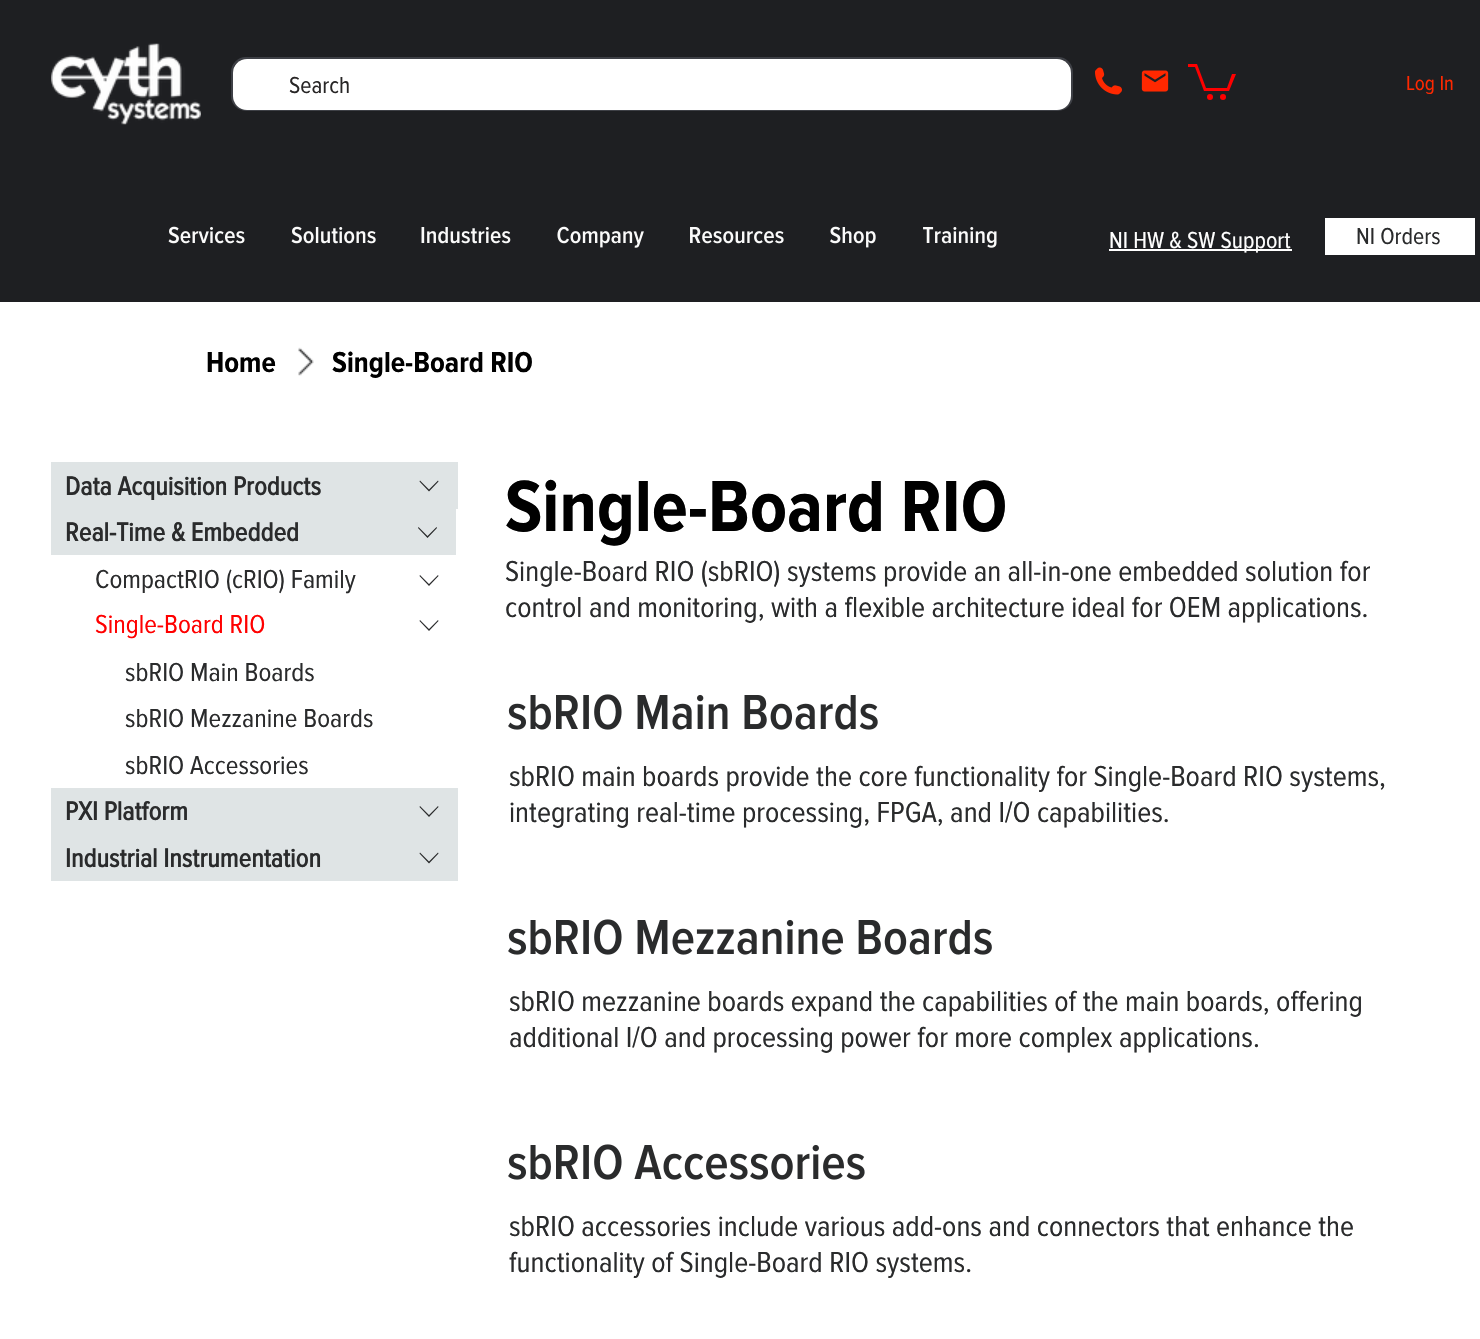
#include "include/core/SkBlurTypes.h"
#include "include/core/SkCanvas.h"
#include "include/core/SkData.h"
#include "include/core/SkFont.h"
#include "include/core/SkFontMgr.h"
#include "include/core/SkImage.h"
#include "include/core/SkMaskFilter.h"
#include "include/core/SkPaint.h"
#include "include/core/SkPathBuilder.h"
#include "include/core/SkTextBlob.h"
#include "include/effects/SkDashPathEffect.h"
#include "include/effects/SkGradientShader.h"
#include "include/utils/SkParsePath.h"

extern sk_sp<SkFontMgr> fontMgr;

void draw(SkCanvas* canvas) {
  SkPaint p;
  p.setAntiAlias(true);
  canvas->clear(SkColorSetRGB(30, 31, 34));
  canvas->drawImageRect(SkImages::DeferredFromEncodedData(SkData::MakeFromFileName("images/1.png")), SkRect::MakeLTRB(51, 43, 201, 125), SkSamplingOptions());
  p.setStyle(SkPaint::kStroke_Style);
  p.setStrokeWidth(2);
  p.setColor(SkColorSetRGB(62, 64, 70));
  canvas->drawRoundRect(SkRect::MakeLTRB(232, 58, 1072, 110), 14, 14, p);
  p.setStyle(SkPaint::kFill_Style);
  p.setColor(SK_ColorWHITE);
  canvas->drawRoundRect(SkRect::MakeLTRB(233, 59, 1071, 110), 14, 14, p);
  canvas->drawImageRect(SkImages::DeferredFromEncodedData(SkData::MakeFromFileName("images/2.png")), SkRect::MakeLTRB(1095, 67, 1122, 95), SkSamplingOptions());
  canvas->drawImageRect(SkImages::DeferredFromEncodedData(SkData::MakeFromFileName("images/3.png")), SkRect::MakeLTRB(1141, 70, 1169, 92), SkSamplingOptions());
  p.setColor(SkColorSetRGB(255, 0, 0));
  canvas->drawPath(SkPathBuilder().moveTo(1236, 74).lineTo(1229, 91).lineTo(1204, 91).lineTo(1195, 67).lineTo(1188, 67).lineTo(1188, 64).lineTo(1197, 64).lineTo(1206, 88).lineTo(1227, 88).lineTo(1232, 74).detach(), p);
  canvas->drawCircle(1223, 97, 3, p);
  canvas->drawCircle(1210, 97, 3, p);
  canvas->drawImageRect(SkImages::DeferredFromEncodedData(SkData::MakeFromFileName("images/4.png")), SkRect::MakeLTRB(168, 226, 245, 244), SkSamplingOptions());
  canvas->drawImageRect(SkImages::DeferredFromEncodedData(SkData::MakeFromFileName("images/5.png")), SkRect::MakeLTRB(291, 226, 376, 244), SkSamplingOptions());
  canvas->drawImageRect(SkImages::DeferredFromEncodedData(SkData::MakeFromFileName("images/6.png")), SkRect::MakeLTRB(421, 227, 511, 244), SkSamplingOptions());
  canvas->drawImageRect(SkImages::DeferredFromEncodedData(SkData::MakeFromFileName("images/7.png")), SkRect::MakeLTRB(557, 226, 644, 248), SkSamplingOptions());
  canvas->drawImageRect(SkImages::DeferredFromEncodedData(SkData::MakeFromFileName("images/8.png")), SkRect::MakeLTRB(690, 227, 784, 244), SkSamplingOptions());
  canvas->drawImageRect(SkImages::DeferredFromEncodedData(SkData::MakeFromFileName("images/9.png")), SkRect::MakeLTRB(830, 226, 876, 248), SkSamplingOptions());
  canvas->drawImageRect(SkImages::DeferredFromEncodedData(SkData::MakeFromFileName("images/10.png")), SkRect::MakeLTRB(923, 227, 997, 248), SkSamplingOptions());
  p.setColor(SK_ColorWHITE);
  canvas->drawRect(SkRect::MakeLTRB(1109, 249, 1292, 251), p);
  canvas->drawRect(SkRect::MakeLTRB(1325, 218, 1475, 255), p);
  canvas->drawRect(SkRect::MakeLTRB(0, 302, 1480, 1339), p);
  canvas->drawImageRect(SkImages::DeferredFromEncodedData(SkData::MakeFromFileName("images/11.png")), SkRect::MakeLTRB(298, 347, 314, 376), SkSamplingOptions());
  p.setColor(SkColorSetRGB(223, 228, 229));
  canvas->drawRect(SkRect::MakeLTRB(51, 462, 458, 509), p);
  p.setColor(SkColorSetRGB(42, 43, 44));
  canvas->drawPath(SkPathBuilder().moveTo(438.5f, 481.5f).lineTo(438, 480.5f).lineTo(429, 489.5f).lineTo(420, 480.5f).lineTo(419.5f, 481.5f).lineTo(429, 491.5f).close().detach(), p);
  p.setColor(SkColorSetRGB(223, 228, 229));
  canvas->drawRect(SkRect::MakeLTRB(51, 509, 456, 555), p);
  p.setColor(SkColorSetRGB(42, 43, 44));
  canvas->drawPath(SkPathBuilder().moveTo(437, 528).lineTo(436.5f, 527).lineTo(427.5f, 536).lineTo(418.5f, 527).lineTo(418, 528).lineTo(427.5f, 538).close().detach(), p);
  canvas->drawPath(SkPathBuilder().moveTo(438.5f, 576).lineTo(438, 575).lineTo(429, 584).lineTo(420, 575).lineTo(419.5f, 576).lineTo(429, 586).close().detach(), p);
  canvas->drawPath(SkPathBuilder().moveTo(438.5f, 621).lineTo(438, 620).lineTo(429, 629).lineTo(420, 620).lineTo(419.5f, 621).lineTo(429, 631).close().detach(), p);
  p.setColor(SkColorSetRGB(223, 228, 229));
  canvas->drawRect(SkRect::MakeLTRB(51, 788, 458, 834), p);
  p.setColor(SkColorSetRGB(42, 43, 44));
  canvas->drawPath(SkPathBuilder().moveTo(438.5f, 807).lineTo(438, 806).lineTo(429, 815).lineTo(420, 806).lineTo(419.5f, 807).lineTo(429, 817).close().detach(), p);
  p.setColor(SkColorSetRGB(223, 228, 229));
  canvas->drawRect(SkRect::MakeLTRB(51, 834, 458, 881), p);
  p.setColor(SkColorSetRGB(42, 43, 44));
  canvas->drawPath(SkPathBuilder().moveTo(438.5f, 853.5f).lineTo(438, 852.5f).lineTo(429, 861.5f).lineTo(420, 852.5f).lineTo(419.5f, 853.5f).lineTo(429, 863.5f).close().detach(), p);
  canvas->drawImageRect(SkImages::DeferredFromEncodedData(SkData::MakeFromFileName("images/12.png")), SkRect::MakeLTRB(508, 694, 878, 730), SkSamplingOptions());
  canvas->drawImageRect(SkImages::DeferredFromEncodedData(SkData::MakeFromFileName("images/13.png")), SkRect::MakeLTRB(508, 919, 992, 955), SkSamplingOptions());
  canvas->drawImageRect(SkImages::DeferredFromEncodedData(SkData::MakeFromFileName("images/14.png")), SkRect::MakeLTRB(508, 1144, 865, 1180), SkSamplingOptions());
  SkFont font1(fontMgr->matchFamilyStyle("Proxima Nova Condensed", SkFontStyle::Normal()), 24);
  font1.setSubpixel(true);
  p.setColor(SkColorSetRGB(40, 38, 38));
  canvas->drawString("Search", 289, 93, font1, p);
  SkFont font2(fontMgr->matchFamilyStyle("Proxima Nova Condensed", SkFontStyle::Normal()), 21);
  font2.setSubpixel(true);
  p.setColor(SkColorSetRGB(255, 40, 0));
  canvas->drawString("Log In", 1406, 90, font2, p);
  p.setColor(SK_ColorWHITE);
  canvas->drawString("NI HW & SW Support", 1109, 248, font1, p);
  p.setColor(SkColorSetRGB(42, 43, 44));
  canvas->drawString("NI Orders", 1356, 244, font1, p);
  SkFont font3(fontMgr->matchFamilyStyle("Proxima Nova Condensed", SkFontStyle::Bold()), 30);
  font3.setSubpixel(true);
  p.setColor(SK_ColorBLACK);
  canvas->drawString("Home", 206, 372, font3, p);
  canvas->drawString("Single-Board RIO", 332, 372, font3, p);
  SkFont font4(fontMgr->matchFamilyStyle("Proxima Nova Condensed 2", SkFontStyle::Bold()), 27);
  font4.setSubpixel(true);
  p.setColor(SkColorSetRGB(42, 43, 44));
  canvas->drawString("Data Acquisition Products", 65, 495, font4, p);
  canvas->drawString("Real-Time & Embedded", 65, 541, font4, p);
  SkFont font5(fontMgr->matchFamilyStyle("Proxima Nova Condensed", SkFontStyle::Normal()), 27);
  font5.setSubpixel(true);
  canvas->drawString("CompactRIO (cRIO) Family", 95, 588, font5, p);
  p.setColor(SkColorSetRGB(255, 0, 0));
  canvas->drawString("Single-Board RIO", 95, 633, font5, p);
  p.setColor(SkColorSetRGB(42, 43, 44));
  canvas->drawString("sbRIO Main Boards", 125, 681, font5, p);
  canvas->drawString("sbRIO Mezzanine Boards", 125, 727, font5, p);
  canvas->drawString("sbRIO Accessories", 125, 774, font5, p);
  canvas->drawString("PXI Platform", 65, 820, font4, p);
  canvas->drawString("Industrial Instrumentation", 65, 867, font4, p);
  SkFont font6(fontMgr->matchFamilyStyle("Proxima Nova Condensed", SkFontStyle::Bold()), 75);
  font6.setSubpixel(true);
  p.setColor(SK_ColorBLACK);
  canvas->drawString("Single-Board RIO", 505, 531, font6, p);
  SkFont font7(fontMgr->matchFamilyStyle("Proxima Nova Condensed", SkFontStyle::Normal()), 30);
  font7.setSubpixel(true);
  p.setColor(SkColorSetRGB(42, 43, 44));
  canvas->drawString("Single-Board RIO (sbRIO) systems provide an all-in-one embedded solution for", 505, 581, font7, p);
  canvas->drawString("control and monitoring, with a flexible architecture ideal for OEM applications.", 505, 617, font7, p);
  canvas->drawString("sbRIO main boards provide the core functionality for Single-Board RIO systems,", 509, 786, font7, p);
  canvas->drawString("integrating real-time processing, FPGA, and I/O capabilities.", 509, 822, font7, p);
  canvas->drawString("sbRIO mezzanine boards expand the capabilities of the main boards, offering", 509, 1011, font7, p);
  canvas->drawString("additional I/O and processing power for more complex applications.", 509, 1047, font7, p);
  canvas->drawString("sbRIO accessories include various add-ons and connectors that enhance the", 509, 1236, font7, p);
  canvas->drawString("functionality of Single-Board RIO systems.", 509, 1272, font7, p);
}
